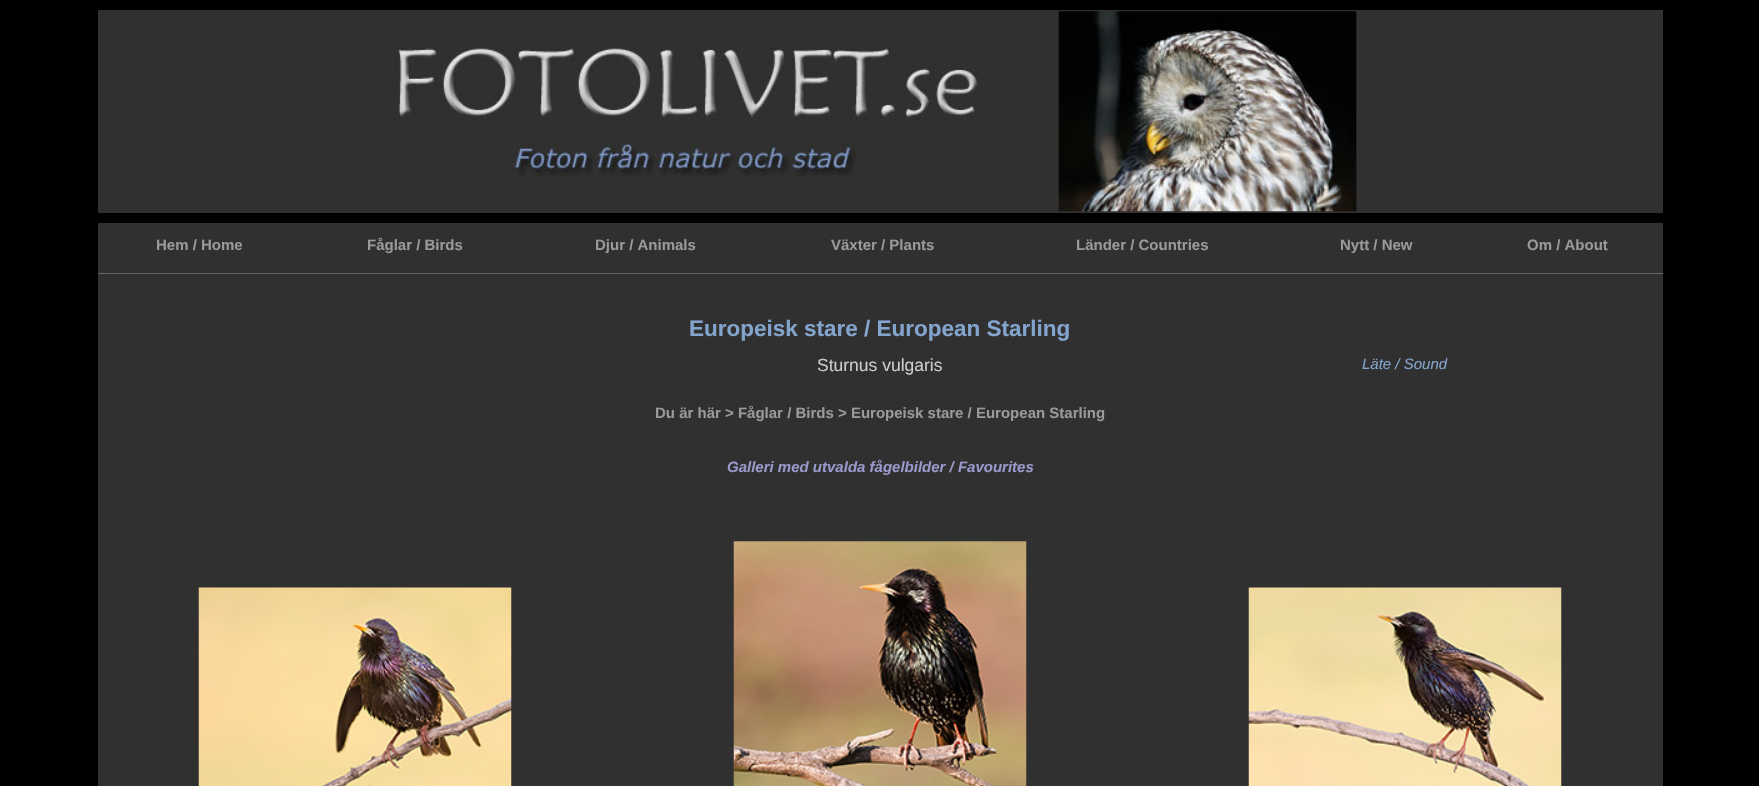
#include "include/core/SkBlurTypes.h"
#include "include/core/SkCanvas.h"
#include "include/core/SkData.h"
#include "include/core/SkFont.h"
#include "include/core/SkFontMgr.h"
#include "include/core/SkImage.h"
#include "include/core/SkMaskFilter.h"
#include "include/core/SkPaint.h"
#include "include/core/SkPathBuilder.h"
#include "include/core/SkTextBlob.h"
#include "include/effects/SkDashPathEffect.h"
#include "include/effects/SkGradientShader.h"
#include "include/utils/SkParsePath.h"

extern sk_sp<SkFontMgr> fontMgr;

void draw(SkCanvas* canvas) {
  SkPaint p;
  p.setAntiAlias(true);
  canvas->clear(SK_ColorBLACK);
  p.setColor(SkColorSetRGB(48, 48, 48));
  canvas->drawRect(SkRect::MakeLTRB(98, 10, 1663, 786), p);
  canvas->drawImageRect(SkImages::DeferredFromEncodedData(SkData::MakeFromFileName("images/1.png")), SkRect::MakeLTRB(397, 11, 1357, 212), SkSamplingOptions());
  p.setColor(SK_ColorBLACK);
  canvas->drawRect(SkRect::MakeLTRB(98, 213, 1663, 223), p);
  p.setColor(SkColorSetRGB(102, 102, 102));
  canvas->drawRect(SkRect::MakeLTRB(98, 273, 1663, 274), p);
  canvas->drawImageRect(SkImages::DeferredFromEncodedData(SkData::MakeFromFileName("images/2.png")), SkRect::MakeLTRB(198, 587, 512, 786), SkSamplingOptions());
  canvas->drawImageRect(SkImages::DeferredFromEncodedData(SkData::MakeFromFileName("images/3.png")), SkRect::MakeLTRB(733, 541, 1027, 786), SkSamplingOptions());
  canvas->drawImageRect(SkImages::DeferredFromEncodedData(SkData::MakeFromFileName("images/4.png")), SkRect::MakeLTRB(1248, 587, 1562, 786), SkSamplingOptions());
  SkFont font1(fontMgr->matchFamilyStyle("Liberation Sans", SkFontStyle::Bold()), 15);
  font1.setSubpixel(true);
  p.setColor(SkColorSetRGB(153, 153, 153));
  canvas->drawString("Hem / Home", 156, 250, font1, p);
  canvas->drawString("Fåglar / Birds", 367, 250, font1, p);
  canvas->drawString("Djur / Animals", 595, 250, font1, p);
  canvas->drawString("Växter / Plants", 831, 250, font1, p);
  canvas->drawString("Länder / Countries", 1076, 250, font1, p);
  canvas->drawString("Nytt / New", 1340, 250, font1, p);
  canvas->drawString("Om / About", 1527, 250, font1, p);
  SkFont font2(fontMgr->matchFamilyStyle("Liberation Sans", SkFontStyle::Bold()), 22.5f);
  font2.setSubpixel(true);
  p.setColor(SkColorSetRGB(131, 164, 205));
  canvas->drawString("Europeisk stare / European Starling", 689, 336, font2, p);
  SkFont font3(fontMgr->matchFamilyStyle("Liberation Sans", SkFontStyle::Normal()), 17.5f);
  font3.setSubpixel(true);
  p.setColor(SkColorSetRGB(204, 204, 204));
  canvas->drawString("Sturnus vulgaris", 817, 371, font3, p);
  SkFont font4(fontMgr->matchFamilyStyle("Liberation Sans", SkFontStyle::Italic()), 15);
  font4.setSubpixel(true);
  p.setColor(SkColorSetRGB(131, 164, 205));
  canvas->drawString("Läte / Sound", 1362, 369, font4, p);
  p.setColor(SkColorSetRGB(153, 153, 153));
  canvas->drawString("Du är här > Fåglar / Birds > Europeisk stare / European Starling", 655, 418, font1, p);
  SkFont font5(fontMgr->matchFamilyStyle("Liberation Sans", SkFontStyle::BoldItalic()), 15);
  font5.setSubpixel(true);
  p.setColor(SkColorSetRGB(153, 153, 204));
  canvas->drawString("Galleri med utvalda fågelbilder / Favourites", 727, 472, font5, p);
}
